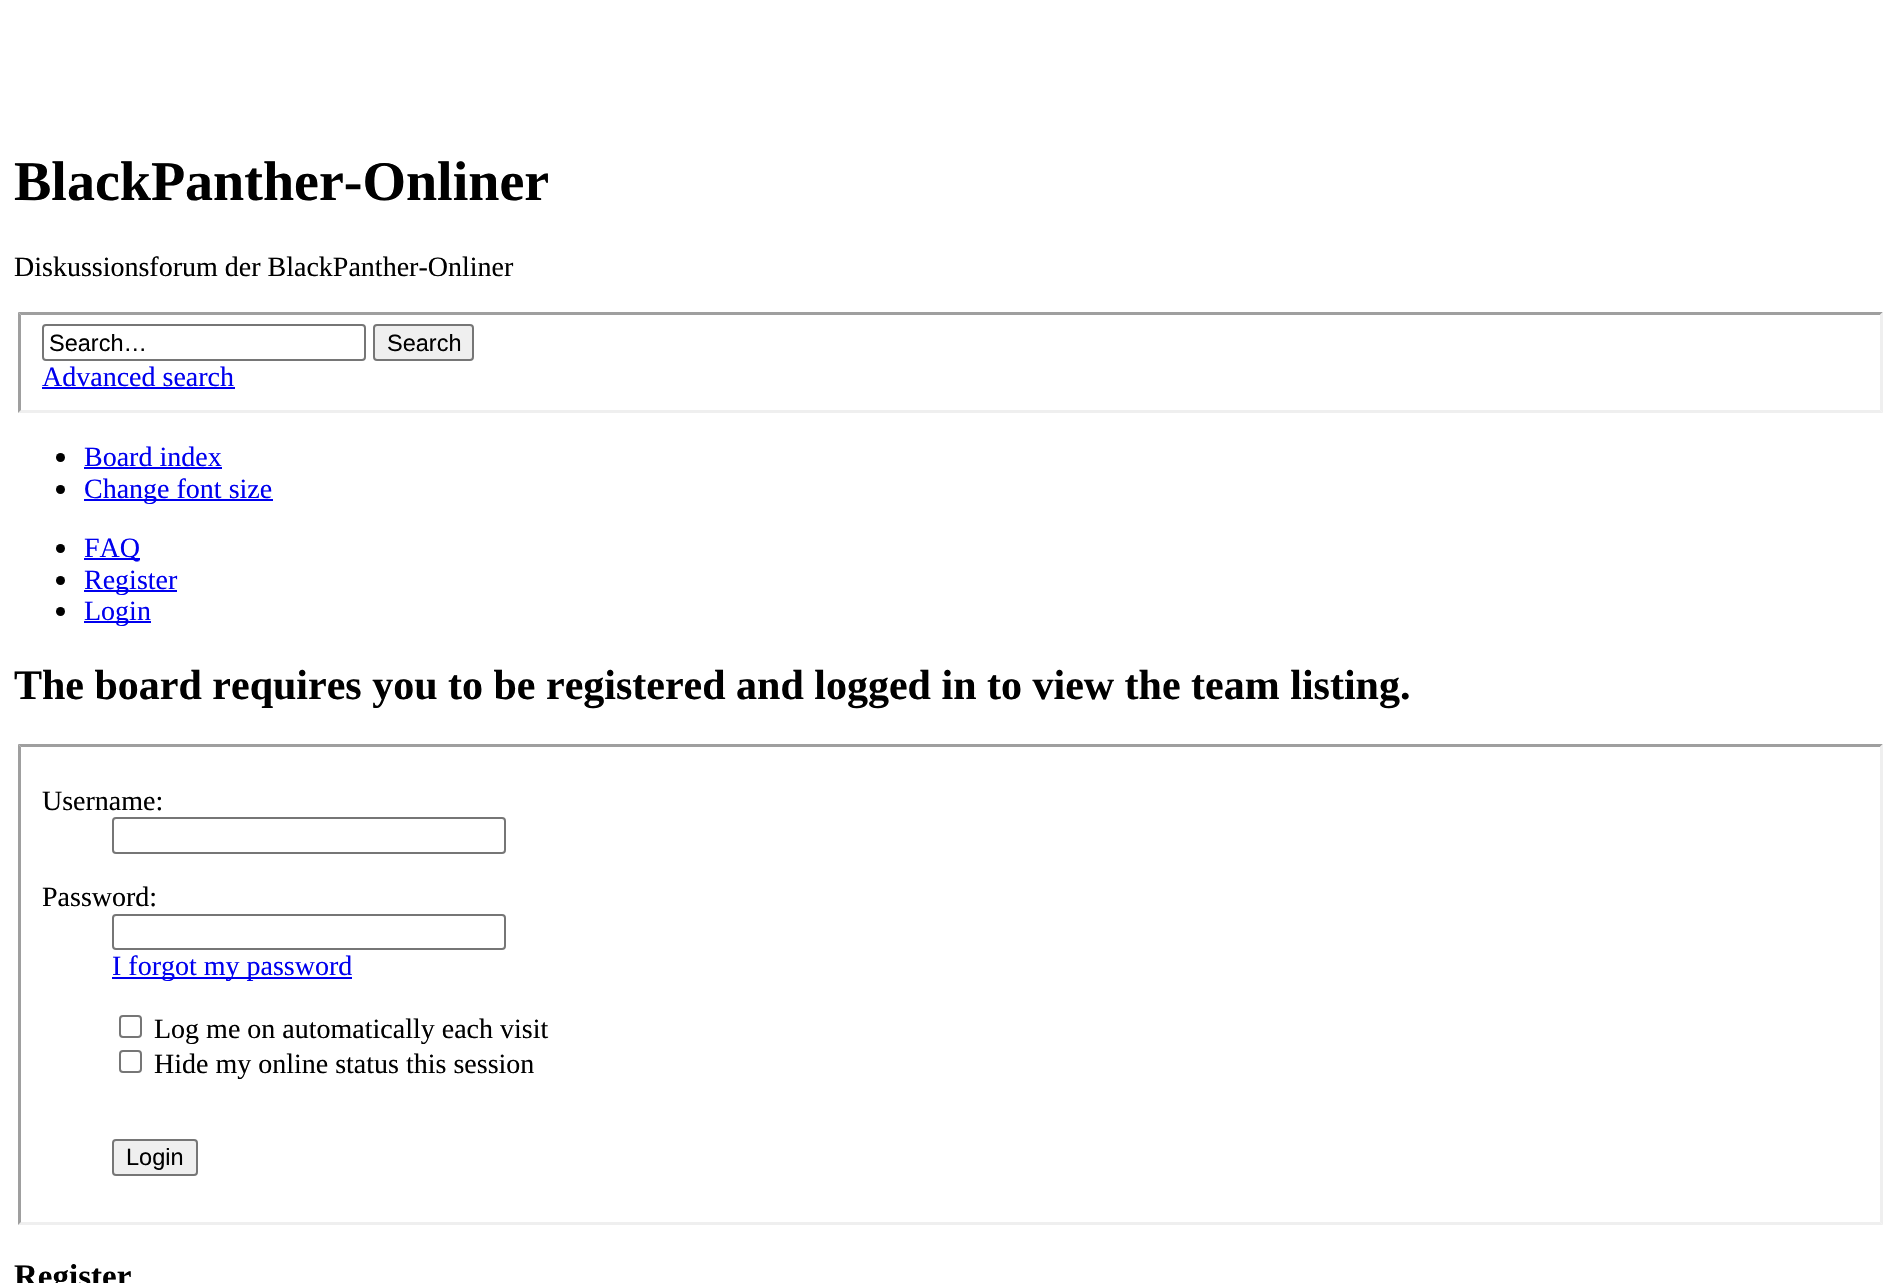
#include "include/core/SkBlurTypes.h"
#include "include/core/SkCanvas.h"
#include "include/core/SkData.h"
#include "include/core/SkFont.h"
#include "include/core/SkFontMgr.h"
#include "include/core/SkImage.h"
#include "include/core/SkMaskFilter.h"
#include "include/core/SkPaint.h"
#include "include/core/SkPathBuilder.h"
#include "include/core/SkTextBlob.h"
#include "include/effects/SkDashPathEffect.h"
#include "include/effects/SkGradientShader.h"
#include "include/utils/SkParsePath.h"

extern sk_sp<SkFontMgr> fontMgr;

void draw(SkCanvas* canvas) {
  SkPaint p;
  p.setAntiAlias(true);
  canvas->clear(SK_ColorWHITE);
  p.setColor(SkColorSetRGB(159, 159, 159));
  canvas->drawPath(SkPathBuilder().moveTo(18, 312).lineTo(1883, 312).lineTo(1880, 315).lineTo(21, 315).close().detach(), p);
  p.setColor(SkColorSetRGB(239, 239, 239));
  canvas->drawPath(SkPathBuilder().moveTo(1883, 312).lineTo(1883, 413).lineTo(1880, 410).lineTo(1880, 315).close().detach(), p);
  canvas->drawPath(SkPathBuilder().moveTo(1883, 413).lineTo(18, 413).lineTo(21, 410).lineTo(1880, 410).close().detach(), p);
  p.setColor(SkColorSetRGB(159, 159, 159));
  canvas->drawPath(SkPathBuilder().moveTo(18, 413).lineTo(18, 312).lineTo(21, 315).lineTo(21, 410).close().detach(), p);
  p.setStyle(SkPaint::kStroke_Style);
  p.setStrokeWidth(2);
  p.setColor(SkColorSetRGB(118, 118, 118));
  canvas->drawRoundRect(SkRect::MakeLTRB(43, 325, 365, 360), 3, 3, p);
  p.setStyle(SkPaint::kFill_Style);
  p.setColor(SkColorSetRGB(239, 239, 239));
  canvas->drawRoundRect(SkRect::MakeLTRB(374, 325, 473, 360), 3, 3, p);
  p.setStyle(SkPaint::kStroke_Style);
  p.setColor(SkColorSetRGB(118, 118, 118));
  canvas->drawRoundRect(SkRect::MakeLTRB(374, 325, 473, 360), 3, 3, p);
  p.setStyle(SkPaint::kFill_Style);
  p.setColor(SkColorSetRGB(0, 0, 238));
  canvas->drawRect(SkRect::MakeLTRB(42, 387, 235, 389), p);
  p.setColor(SK_ColorBLACK);
  canvas->drawCircle(60.5f, 457.5f, 4.5f, p);
  p.setColor(SkColorSetRGB(0, 0, 238));
  canvas->drawRect(SkRect::MakeLTRB(84, 467, 222, 469), p);
  p.setColor(SK_ColorBLACK);
  canvas->drawCircle(60.5f, 489.5f, 4.5f, p);
  p.setColor(SkColorSetRGB(0, 0, 238));
  canvas->drawRect(SkRect::MakeLTRB(84, 499, 273, 501), p);
  p.setColor(SK_ColorBLACK);
  canvas->drawCircle(60.5f, 548.5f, 4.5f, p);
  p.setColor(SkColorSetRGB(0, 0, 238));
  canvas->drawRect(SkRect::MakeLTRB(84, 558, 140, 560), p);
  p.setColor(SK_ColorBLACK);
  canvas->drawCircle(60.5f, 580.5f, 4.5f, p);
  p.setColor(SkColorSetRGB(0, 0, 238));
  canvas->drawRect(SkRect::MakeLTRB(84, 590, 177, 592), p);
  p.setColor(SK_ColorBLACK);
  canvas->drawCircle(60.5f, 611.5f, 4.5f, p);
  p.setColor(SkColorSetRGB(0, 0, 238));
  canvas->drawRect(SkRect::MakeLTRB(84, 621, 151, 623), p);
  p.setColor(SkColorSetRGB(159, 159, 159));
  canvas->drawPath(SkPathBuilder().moveTo(18, 744).lineTo(1883, 744).lineTo(1880, 747).lineTo(21, 747).close().detach(), p);
  p.setColor(SkColorSetRGB(239, 239, 239));
  canvas->drawPath(SkPathBuilder().moveTo(1883, 744).lineTo(1883, 1225).lineTo(1880, 1222).lineTo(1880, 747).close().detach(), p);
  canvas->drawPath(SkPathBuilder().moveTo(1883, 1225).lineTo(18, 1225).lineTo(21, 1222).lineTo(1880, 1222).close().detach(), p);
  p.setColor(SkColorSetRGB(159, 159, 159));
  canvas->drawPath(SkPathBuilder().moveTo(18, 1225).lineTo(18, 744).lineTo(21, 747).lineTo(21, 1222).close().detach(), p);
  p.setStyle(SkPaint::kStroke_Style);
  p.setColor(SkColorSetRGB(118, 118, 118));
  canvas->drawRoundRect(SkRect::MakeLTRB(113, 818, 505, 853), 3, 3, p);
  canvas->drawRoundRect(SkRect::MakeLTRB(113, 915, 505, 949), 3, 3, p);
  p.setStyle(SkPaint::kFill_Style);
  p.setColor(SkColorSetRGB(0, 0, 238));
  canvas->drawRect(SkRect::MakeLTRB(112, 977, 352, 979), p);
  p.setStyle(SkPaint::kStroke_Style);
  p.setColor(SkColorSetRGB(118, 118, 118));
  canvas->drawRoundRect(SkRect::MakeLTRB(120, 1016, 141, 1037), 3, 3, p);
  canvas->drawRoundRect(SkRect::MakeLTRB(120, 1051, 141, 1072), 3, 3, p);
  p.setStyle(SkPaint::kFill_Style);
  p.setColor(SkColorSetRGB(239, 239, 239));
  canvas->drawRoundRect(SkRect::MakeLTRB(113, 1140, 197, 1175), 3, 3, p);
  p.setStyle(SkPaint::kStroke_Style);
  p.setColor(SkColorSetRGB(118, 118, 118));
  canvas->drawRoundRect(SkRect::MakeLTRB(113, 1140, 197, 1175), 3, 3, p);
  SkFont font1(fontMgr->matchFamilyStyle("Liberation Serif", SkFontStyle::Bold()), 56);
  font1.setSubpixel(true);
  p.setStyle(SkPaint::kFill_Style);
  p.setColor(SK_ColorBLACK);
  canvas->drawString("BlackPanther-Onliner", 14, 200, font1, p);
  SkFont font2(fontMgr->matchFamilyStyle("Liberation Serif", SkFontStyle::Normal()), 28);
  font2.setSubpixel(true);
  canvas->drawString("Diskussionsforum der BlackPanther-Onliner", 14, 276, font2, p);
  SkFont font3(fontMgr->matchFamilyStyle("Liberation Sans", SkFontStyle::Normal()), 23.5f);
  font3.setSubpixel(true);
  canvas->drawString("Search…", 49, 351, font3, p);
  canvas->drawString("Search", 387, 351, font3, p);
  p.setColor(SkColorSetRGB(0, 0, 238));
  canvas->drawString("Advanced search", 42, 386, font2, p);
  canvas->drawString("Board index", 84, 466, font2, p);
  canvas->drawString("Change font size", 84, 498, font2, p);
  canvas->drawString("FAQ", 84, 557, font2, p);
  canvas->drawString("Register", 84, 589, font2, p);
  canvas->drawString("Login", 84, 620, font2, p);
  SkFont font4(fontMgr->matchFamilyStyle("Liberation Serif", SkFontStyle::Bold()), 42);
  font4.setSubpixel(true);
  p.setColor(SK_ColorBLACK);
  canvas->drawString("The board requires you to be registered and logged in to view the team listing.", 14, 699, font4, p);
  canvas->drawString("Username:", 42, 810, font2, p);
  canvas->drawString("Password:", 42, 906, font2, p);
  p.setColor(SkColorSetRGB(0, 0, 238));
  canvas->drawString("I forgot my password", 112, 975, font2, p);
  p.setColor(SK_ColorBLACK);
  canvas->drawString("Log me on automatically each visit", 154, 1038, font2, p);
  canvas->drawString("Hide my online status this session", 154, 1073, font2, p);
  canvas->drawString("Login", 126, 1165, font3, p);
  SkFont font5(fontMgr->matchFamilyStyle("Liberation Serif", SkFontStyle::Bold()), 33);
  font5.setSubpixel(true);
  canvas->drawString("Register", 14, 1287, font5, p);
}
